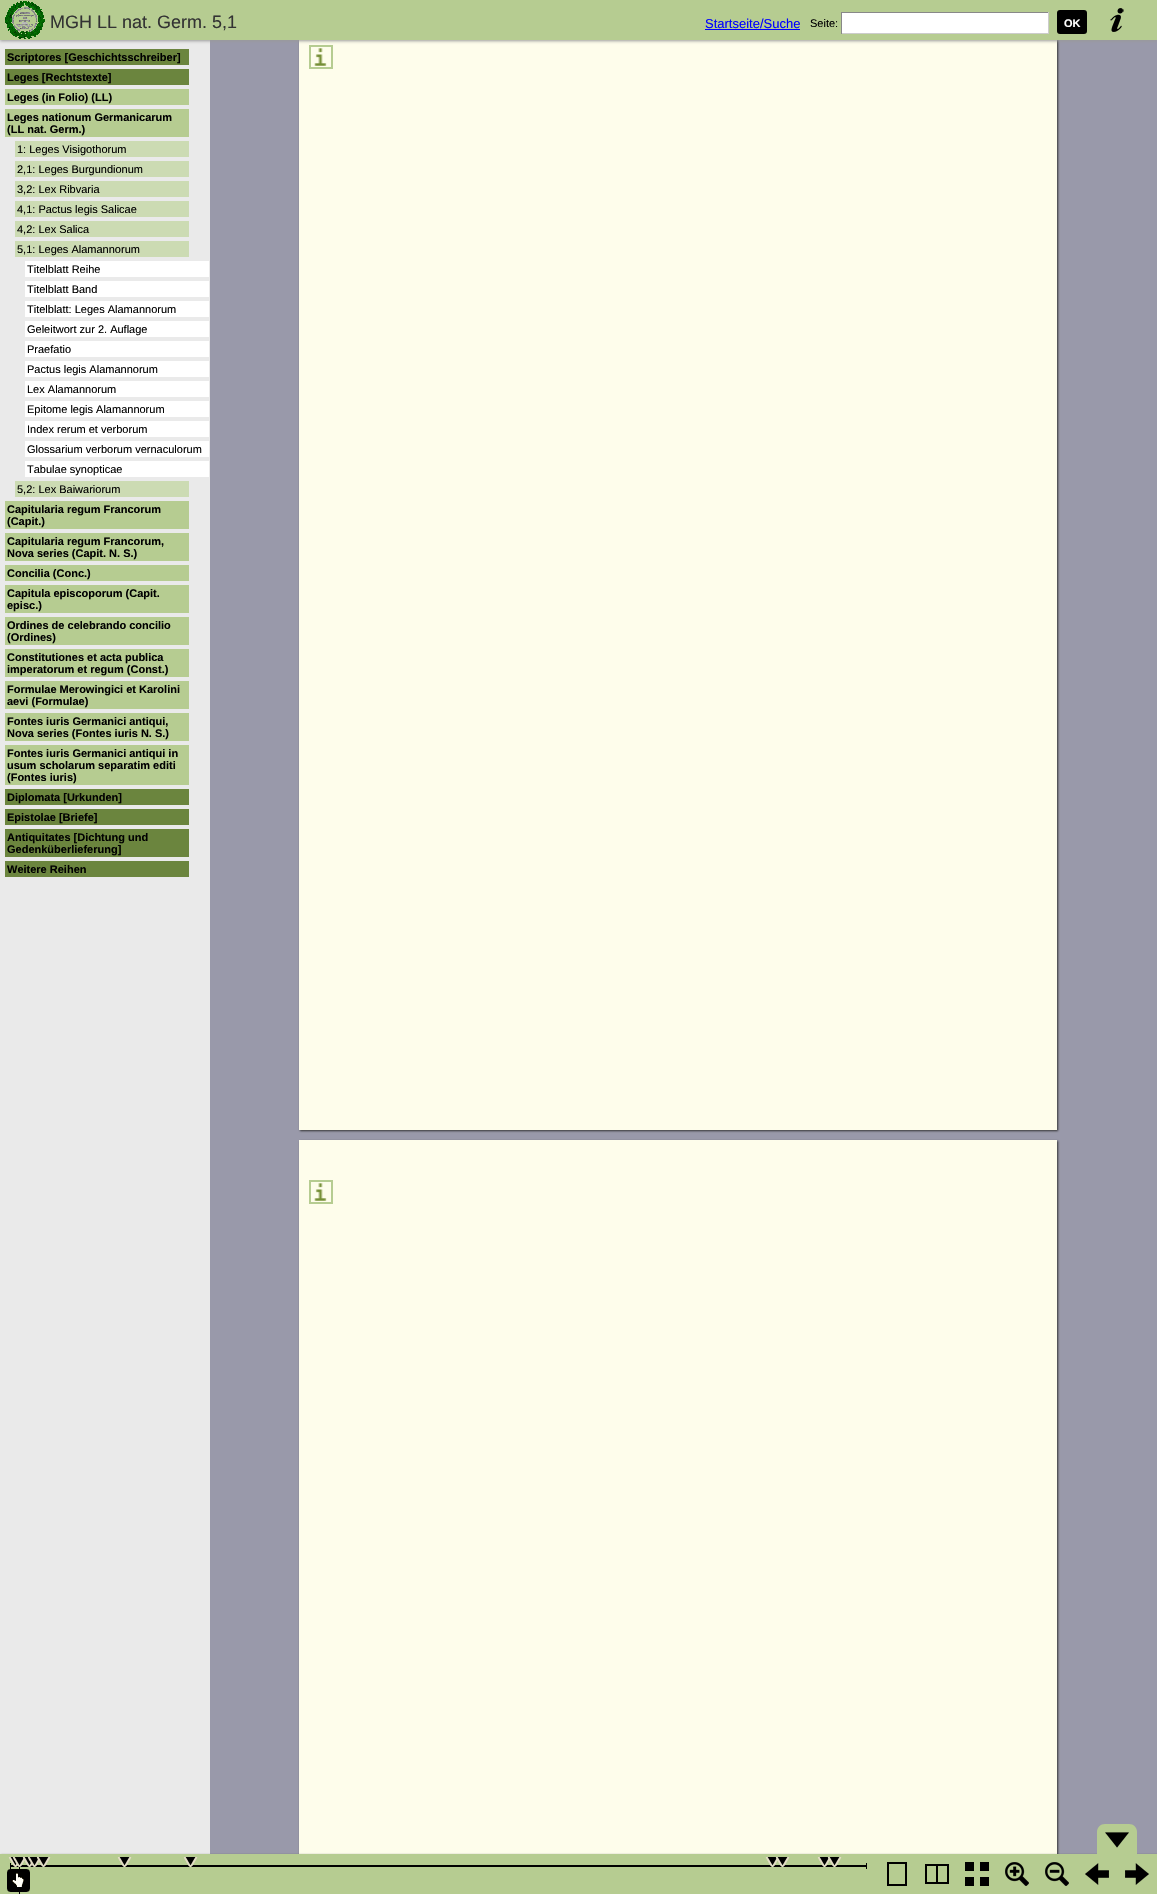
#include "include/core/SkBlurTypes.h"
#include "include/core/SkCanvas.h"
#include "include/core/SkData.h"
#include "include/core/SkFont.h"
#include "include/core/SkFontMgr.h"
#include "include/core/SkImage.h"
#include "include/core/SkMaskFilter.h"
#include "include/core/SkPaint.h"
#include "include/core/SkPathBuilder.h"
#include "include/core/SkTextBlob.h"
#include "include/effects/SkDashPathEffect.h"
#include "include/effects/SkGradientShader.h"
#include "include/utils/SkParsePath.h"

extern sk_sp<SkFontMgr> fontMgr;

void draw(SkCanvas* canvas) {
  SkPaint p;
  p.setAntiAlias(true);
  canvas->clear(SkColorSetRGB(153, 153, 170));
  p.setColor(SkColorSetRGB(51, 51, 51));
  p.setMaskFilter(SkMaskFilter::MakeBlur(kNormal_SkBlurStyle, 1));
  canvas->drawRect(SkRect::MakeLTRB(300, 6, 1058, 1131), p);
  p.setMaskFilter(nullptr);
  p.setColor(SkColorSetRGB(254, 253, 235));
  canvas->drawRect(SkRect::MakeLTRB(299, 40, 1057, 1130), p);
  p.setStyle(SkPaint::kStroke_Style);
  p.setStrokeWidth(2);
  p.setColor(SkColorSetRGB(182, 204, 145));
  canvas->drawRect(SkRect::MakeLTRB(310, 46, 332, 68), p);
  canvas->drawImageRect(SkImages::DeferredFromEncodedData(SkData::MakeFromFileName("images/1.png")), SkRect::MakeLTRB(314, 48, 327, 66), SkSamplingOptions());
  p.setStyle(SkPaint::kFill_Style);
  p.setColor(SkColorSetRGB(51, 51, 51));
  p.setMaskFilter(SkMaskFilter::MakeBlur(kNormal_SkBlurStyle, 1));
  canvas->drawRect(SkRect::MakeLTRB(300, 1141, 1058, 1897), p);
  p.setMaskFilter(nullptr);
  p.setColor(SkColorSetRGB(254, 253, 235));
  canvas->drawRect(SkRect::MakeLTRB(299, 1140, 1057, 1854), p);
  p.setStyle(SkPaint::kStroke_Style);
  p.setColor(SkColorSetRGB(182, 204, 145));
  canvas->drawRect(SkRect::MakeLTRB(310, 1181, 332, 1203), p);
  canvas->drawImageRect(SkImages::DeferredFromEncodedData(SkData::MakeFromFileName("images/1.png")), SkRect::MakeLTRB(314, 1183, 327, 1201), SkSamplingOptions());
  p.setStyle(SkPaint::kFill_Style);
  p.setColor(SkColorSetRGB(234, 234, 234));
  canvas->drawRect(SkRect::MakeLTRB(0, 40, 210, 1854), p);
  p.setColor(SkColorSetRGB(153, 153, 153));
  p.setMaskFilter(SkMaskFilter::MakeBlur(kNormal_SkBlurStyle, 1.5f));
  canvas->drawRect(SkRect::MakeLTRB(0, 1, 1157, 41), p);
  p.setMaskFilter(nullptr);
  p.setColor(SkColorSetRGB(182, 204, 145));
  canvas->drawRect(SkRect::MakeLTRB(0, 0, 1157, 40), p);
  canvas->drawImageRect(SkImages::DeferredFromEncodedData(SkData::MakeFromFileName("images/2.png")), SkRect::MakeLTRB(5, 1, 45, 39), SkSamplingOptions());
  p.setColor(SkColorSetRGB(0, 0, 255));
  canvas->drawRect(SkRect::MakeLTRB(705, 29, 800, 30), p);
  p.setColor(SK_ColorWHITE);
  canvas->drawRect(SkRect::MakeLTRB(842, 13, 1048, 33), p);
  p.setColor(SkColorSetRGB(136, 136, 136));
  canvas->drawRect(SkRect::MakeLTRB(841, 12, 1049, 13), p);
  p.setColor(SkColorSetRGB(204, 204, 204));
  canvas->drawRect(SkRect::MakeLTRB(1048, 12, 1049, 34), p);
  canvas->drawRect(SkRect::MakeLTRB(841, 33, 1049, 34), p);
  p.setColor(SkColorSetRGB(136, 136, 136));
  canvas->drawRect(SkRect::MakeLTRB(841, 12, 842, 34), p);
  p.setColor(SK_ColorBLACK);
  canvas->drawRoundRect(SkRect::MakeLTRB(1057, 10, 1087, 34), 3, 3, p);
  canvas->drawImageRect(SkImages::DeferredFromEncodedData(SkData::MakeFromFileName("images/3.png")), SkRect::MakeLTRB(1110, 8, 1124, 32), SkSamplingOptions());
  p.setColor(SkColorSetRGB(51, 51, 51));
  p.setMaskFilter(SkMaskFilter::MakeBlur(kNormal_SkBlurStyle, 1));
  canvas->drawRect(SkRect::MakeLTRB(1, 1855, 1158, 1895), p);
  p.setMaskFilter(nullptr);
  p.setColor(SkColorSetRGB(182, 204, 145));
  canvas->drawRect(SkRect::MakeLTRB(0, 1854, 1157, 1894), p);
  canvas->drawPath(SkPathBuilder().moveTo(1105, 1824).lineTo(1129, 1824).cubicTo(1133.5f, 1824, 1137, 1827.5f, 1137, 1832).lineTo(1137, 1854).lineTo(1097, 1854).lineTo(1097, 1832).cubicTo(1097, 1827.5f, 1100.5f, 1824, 1105, 1824).close().detach(), p);
  canvas->drawImageRect(SkImages::DeferredFromEncodedData(SkData::MakeFromFileName("images/4.png")), SkRect::MakeLTRB(1105, 1832, 1129, 1848), SkSamplingOptions());
  p.setColor(SK_ColorBLACK);
  canvas->drawRect(SkRect::MakeLTRB(10, 1865, 867, 1867), p);
  canvas->drawRect(SkRect::MakeLTRB(10, 1863, 11, 1869), p);
  canvas->drawImageRect(SkImages::DeferredFromEncodedData(SkData::MakeFromFileName("images/5.png")), SkRect::MakeLTRB(8, 1857, 18, 1867), SkSamplingOptions());
  canvas->drawImageRect(SkImages::DeferredFromEncodedData(SkData::MakeFromFileName("images/6.png")), SkRect::MakeLTRB(12, 1857, 25, 1867), SkSamplingOptions());
  canvas->drawImageRect(SkImages::DeferredFromEncodedData(SkData::MakeFromFileName("images/7.png")), SkRect::MakeLTRB(22, 1857, 32, 1867), SkSamplingOptions());
  canvas->drawImageRect(SkImages::DeferredFromEncodedData(SkData::MakeFromFileName("images/8.png")), SkRect::MakeLTRB(27, 1857, 40, 1867), SkSamplingOptions());
  canvas->drawImageRect(SkImages::DeferredFromEncodedData(SkData::MakeFromFileName("images/9.png")), SkRect::MakeLTRB(36, 1857, 51, 1867), SkSamplingOptions());
  canvas->drawImageRect(SkImages::DeferredFromEncodedData(SkData::MakeFromFileName("images/10.png")), SkRect::MakeLTRB(117, 1857, 132, 1867), SkSamplingOptions());
  canvas->drawImageRect(SkImages::DeferredFromEncodedData(SkData::MakeFromFileName("images/10.png")), SkRect::MakeLTRB(183, 1857, 198, 1867), SkSamplingOptions());
  canvas->drawImageRect(SkImages::DeferredFromEncodedData(SkData::MakeFromFileName("images/11.png")), SkRect::MakeLTRB(765, 1857, 778, 1867), SkSamplingOptions());
  canvas->drawImageRect(SkImages::DeferredFromEncodedData(SkData::MakeFromFileName("images/12.png")), SkRect::MakeLTRB(775, 1857, 790, 1867), SkSamplingOptions());
  canvas->drawImageRect(SkImages::DeferredFromEncodedData(SkData::MakeFromFileName("images/11.png")), SkRect::MakeLTRB(817, 1857, 830, 1867), SkSamplingOptions());
  canvas->drawImageRect(SkImages::DeferredFromEncodedData(SkData::MakeFromFileName("images/12.png")), SkRect::MakeLTRB(827, 1857, 842, 1867), SkSamplingOptions());
  canvas->drawRect(SkRect::MakeLTRB(866, 1863, 867, 1869), p);
  canvas->drawImageRect(SkImages::DeferredFromEncodedData(SkData::MakeFromFileName("images/13.png")), SkRect::MakeLTRB(7, 1867, 30, 1894), SkSamplingOptions());
  canvas->drawImageRect(SkImages::DeferredFromEncodedData(SkData::MakeFromFileName("images/14.png")), SkRect::MakeLTRB(887, 1862, 907, 1886), SkSamplingOptions());
  canvas->drawImageRect(SkImages::DeferredFromEncodedData(SkData::MakeFromFileName("images/15.png")), SkRect::MakeLTRB(925, 1864, 949, 1884), SkSamplingOptions());
  canvas->drawImageRect(SkImages::DeferredFromEncodedData(SkData::MakeFromFileName("images/16.png")), SkRect::MakeLTRB(965, 1862, 989, 1886), SkSamplingOptions());
  canvas->drawImageRect(SkImages::DeferredFromEncodedData(SkData::MakeFromFileName("images/17.png")), SkRect::MakeLTRB(1005, 1862, 1029, 1886), SkSamplingOptions());
  canvas->drawImageRect(SkImages::DeferredFromEncodedData(SkData::MakeFromFileName("images/18.png")), SkRect::MakeLTRB(1045, 1862, 1069, 1886), SkSamplingOptions());
  canvas->drawImageRect(SkImages::DeferredFromEncodedData(SkData::MakeFromFileName("images/19.png")), SkRect::MakeLTRB(1085, 1863, 1109, 1885), SkSamplingOptions());
  canvas->drawImageRect(SkImages::DeferredFromEncodedData(SkData::MakeFromFileName("images/20.png")), SkRect::MakeLTRB(1125, 1863, 1149, 1885), SkSamplingOptions());
  p.setColor(SkColorSetRGB(107, 133, 62));
  canvas->drawRect(SkRect::MakeLTRB(5, 49, 189, 65), p);
  canvas->drawRect(SkRect::MakeLTRB(5, 69, 189, 85), p);
  p.setColor(SkColorSetRGB(182, 204, 145));
  canvas->drawRect(SkRect::MakeLTRB(5, 89, 189, 105), p);
  canvas->drawRect(SkRect::MakeLTRB(5, 109, 189, 137), p);
  p.setColor(SkColorSetRGB(204, 219, 179));
  canvas->drawRect(SkRect::MakeLTRB(15, 141, 189, 157), p);
  canvas->drawRect(SkRect::MakeLTRB(15, 161, 189, 177), p);
  canvas->drawRect(SkRect::MakeLTRB(15, 181, 189, 197), p);
  canvas->drawRect(SkRect::MakeLTRB(15, 201, 189, 217), p);
  canvas->drawRect(SkRect::MakeLTRB(15, 221, 189, 237), p);
  canvas->drawRect(SkRect::MakeLTRB(15, 241, 189, 257), p);
  p.setColor(SK_ColorWHITE);
  canvas->drawRect(SkRect::MakeLTRB(25, 261, 209, 277), p);
  canvas->drawRect(SkRect::MakeLTRB(25, 281, 209, 297), p);
  canvas->drawRect(SkRect::MakeLTRB(25, 301, 209, 317), p);
  canvas->drawRect(SkRect::MakeLTRB(25, 321, 209, 337), p);
  canvas->drawRect(SkRect::MakeLTRB(25, 341, 209, 357), p);
  canvas->drawRect(SkRect::MakeLTRB(25, 361, 209, 377), p);
  canvas->drawRect(SkRect::MakeLTRB(25, 381, 209, 397), p);
  canvas->drawRect(SkRect::MakeLTRB(25, 401, 209, 417), p);
  canvas->drawRect(SkRect::MakeLTRB(25, 421, 209, 437), p);
  canvas->drawRect(SkRect::MakeLTRB(25, 441, 209, 457), p);
  canvas->drawRect(SkRect::MakeLTRB(25, 461, 209, 477), p);
  p.setColor(SkColorSetRGB(204, 219, 179));
  canvas->drawRect(SkRect::MakeLTRB(15, 481, 189, 497), p);
  p.setColor(SkColorSetRGB(182, 204, 145));
  canvas->drawRect(SkRect::MakeLTRB(5, 501, 189, 529), p);
  canvas->drawRect(SkRect::MakeLTRB(5, 533, 189, 561), p);
  canvas->drawRect(SkRect::MakeLTRB(5, 565, 189, 581), p);
  canvas->drawRect(SkRect::MakeLTRB(5, 585, 189, 613), p);
  canvas->drawRect(SkRect::MakeLTRB(5, 617, 189, 645), p);
  canvas->drawRect(SkRect::MakeLTRB(5, 649, 189, 677), p);
  canvas->drawRect(SkRect::MakeLTRB(5, 681, 189, 709), p);
  canvas->drawRect(SkRect::MakeLTRB(5, 713, 189, 741), p);
  canvas->drawRect(SkRect::MakeLTRB(5, 745, 189, 785), p);
  p.setColor(SkColorSetRGB(107, 133, 62));
  canvas->drawRect(SkRect::MakeLTRB(5, 789, 189, 805), p);
  canvas->drawRect(SkRect::MakeLTRB(5, 809, 189, 825), p);
  canvas->drawRect(SkRect::MakeLTRB(5, 829, 189, 857), p);
  canvas->drawRect(SkRect::MakeLTRB(5, 861, 189, 877), p);
  SkFont font1(fontMgr->matchFamilyStyle("Liberation Sans", SkFontStyle::Normal()), 18);
  font1.setSubpixel(true);
  p.setColor(SkColorSetRGB(51, 51, 51));
  canvas->drawString("MGH LL nat. Germ. 5,1", 50, 28, font1, p);
  SkFont font2(fontMgr->matchFamilyStyle("Liberation Sans", SkFontStyle::Normal()), 13);
  font2.setSubpixel(true);
  p.setColor(SkColorSetRGB(0, 0, 255));
  canvas->drawString("Startseite/Suche", 705, 28, font2, p);
  SkFont font3(fontMgr->matchFamilyStyle("Liberation Sans", SkFontStyle::Normal()), 11);
  font3.setSubpixel(true);
  p.setColor(SK_ColorBLACK);
  canvas->drawString("Seite:", 810, 27, font3, p);
  SkFont font4(fontMgr->matchFamilyStyle("Liberation Sans", SkFontStyle::Bold()), 11);
  font4.setSubpixel(true);
  p.setColor(SK_ColorWHITE);
  canvas->drawString("OK", 1064, 27, font4, p);
  p.setColor(SK_ColorBLACK);
  canvas->drawString("Scriptores [Geschichtsschreiber]", 7, 61, font4, p);
  canvas->drawString("Leges [Rechtstexte]", 7, 81, font4, p);
  canvas->drawString("Leges (in Folio) (LL)", 7, 101, font4, p);
  canvas->drawString("Leges nationum Germanicarum", 7, 121, font4, p);
  canvas->drawString("(LL nat. Germ.)", 7, 133, font4, p);
  canvas->drawString("1: Leges Visigothorum", 17, 153, font3, p);
  canvas->drawString("2,1: Leges Burgundionum", 17, 173, font3, p);
  canvas->drawString("3,2: Lex Ribvaria", 17, 193, font3, p);
  canvas->drawString("4,1: Pactus legis Salicae", 17, 213, font3, p);
  canvas->drawString("4,2: Lex Salica", 17, 233, font3, p);
  canvas->drawString("5,1: Leges Alamannorum", 17, 253, font3, p);
  canvas->drawString("Titelblatt Reihe", 27, 273, font3, p);
  canvas->drawString("Titelblatt Band", 27, 293, font3, p);
  canvas->drawString("Titelblatt: Leges Alamannorum", 27, 313, font3, p);
  canvas->drawString("Geleitwort zur 2. Auflage", 27, 333, font3, p);
  canvas->drawString("Praefatio", 27, 353, font3, p);
  canvas->drawString("Pactus legis Alamannorum", 27, 373, font3, p);
  canvas->drawString("Lex Alamannorum", 27, 393, font3, p);
  canvas->drawString("Epitome legis Alamannorum", 27, 413, font3, p);
  canvas->drawString("Index rerum et verborum", 27, 433, font3, p);
  canvas->drawString("Glossarium verborum vernaculorum", 27, 453, font3, p);
  canvas->drawString("Tabulae synopticae", 27, 473, font3, p);
  canvas->drawString("5,2: Lex Baiwariorum", 17, 493, font3, p);
  canvas->drawString("Capitularia regum Francorum", 7, 513, font4, p);
  canvas->drawString("(Capit.)", 7, 525, font4, p);
  canvas->drawString("Capitularia regum Francorum,", 7, 545, font4, p);
  canvas->drawString("Nova series (Capit. N. S.)", 7, 557, font4, p);
  canvas->drawString("Concilia (Conc.)", 7, 577, font4, p);
  canvas->drawString("Capitula episcoporum (Capit.", 7, 597, font4, p);
  canvas->drawString("episc.)", 7, 609, font4, p);
  canvas->drawString("Ordines de celebrando concilio", 7, 629, font4, p);
  canvas->drawString("(Ordines)", 7, 641, font4, p);
  canvas->drawString("Constitutiones et acta publica", 7, 661, font4, p);
  canvas->drawString("imperatorum et regum (Const.)", 7, 673, font4, p);
  canvas->drawString("Formulae Merowingici et Karolini", 7, 693, font4, p);
  canvas->drawString("aevi (Formulae)", 7, 705, font4, p);
  canvas->drawString("Fontes iuris Germanici antiqui,", 7, 725, font4, p);
  canvas->drawString("Nova series (Fontes iuris N. S.)", 7, 737, font4, p);
  canvas->drawString("Fontes iuris Germanici antiqui in", 7, 757, font4, p);
  canvas->drawString("usum scholarum separatim editi", 7, 769, font4, p);
  canvas->drawString("(Fontes iuris)", 7, 781, font4, p);
  canvas->drawString("Diplomata [Urkunden]", 7, 801, font4, p);
  canvas->drawString("Epistolae [Briefe]", 7, 821, font4, p);
  canvas->drawString("Antiquitates [Dichtung und", 7, 841, font4, p);
  canvas->drawString("Gedenküberlieferung]", 7, 853, font4, p);
  canvas->drawString("Weitere Reihen", 7, 873, font4, p);
}
